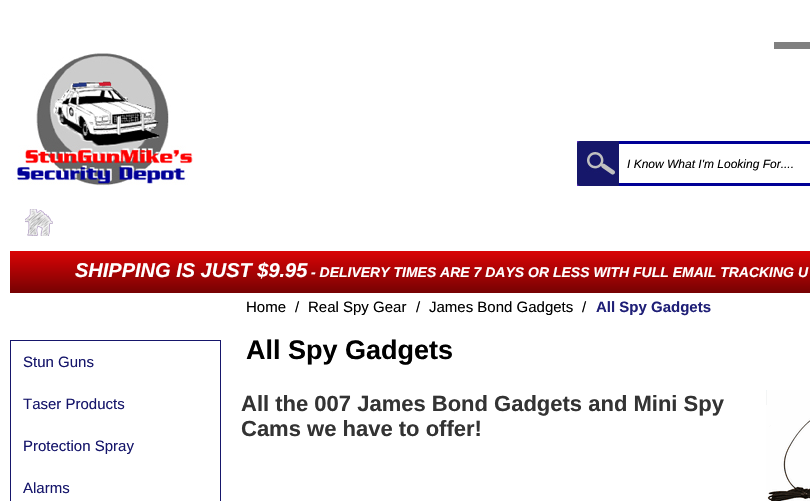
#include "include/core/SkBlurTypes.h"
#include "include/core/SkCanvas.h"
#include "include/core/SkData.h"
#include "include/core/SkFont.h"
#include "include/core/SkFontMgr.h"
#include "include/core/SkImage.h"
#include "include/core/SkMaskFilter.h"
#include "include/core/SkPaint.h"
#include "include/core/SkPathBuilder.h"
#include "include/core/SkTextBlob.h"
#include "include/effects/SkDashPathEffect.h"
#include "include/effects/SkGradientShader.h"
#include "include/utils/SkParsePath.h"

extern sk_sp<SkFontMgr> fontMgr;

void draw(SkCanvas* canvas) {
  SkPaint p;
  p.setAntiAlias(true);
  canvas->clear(SK_ColorWHITE);
  p.setColor(SkColorSetRGB(128, 128, 128));
  canvas->drawRect(SkRect::MakeLTRB(774, 42, 810, 49), p);
  canvas->drawImageRect(SkImages::DeferredFromEncodedData(SkData::MakeFromFileName("images/1.png")), SkRect::MakeLTRB(12, 53, 193, 186), SkSamplingOptions());
  canvas->drawImageRect(SkImages::DeferredFromEncodedData(SkData::MakeFromFileName("images/2.png")), SkRect::MakeLTRB(577, 141, 619, 186), SkSamplingOptions());
  canvas->drawImageRect(SkImages::DeferredFromEncodedData(SkData::MakeFromFileName("images/3.png")), SkRect::MakeLTRB(619, 141, 810, 186), SkSamplingOptions());
  canvas->drawImageRect(SkImages::DeferredFromEncodedData(SkData::MakeFromFileName("images/4.png")), SkRect::MakeLTRB(25, 209, 53, 236), SkSamplingOptions());
  {
    const SkColor colors[] = {SkColorSetRGB(218, 4, 6), SkColorSetRGB(118, 2, 3)};
    const float stops[] = {0, 1};
    const SkPoint ends[] = {{491, 251}, {491, 293}};
    p.setShader(SkGradientShader::MakeLinear(ends, colors, stops, 2, SkTileMode::kClamp));
    p.setAlpha(255);
  }
  canvas->drawRect(SkRect::MakeLTRB(10, 251, 810, 293), p);
  p.setStyle(SkPaint::kStroke_Style);
  p.setStrokeWidth(1);
  p.setShader(nullptr);
  p.setColor(SkColorSetRGB(22, 22, 107));
  canvas->drawRect(SkRect::MakeLTRB(10.5f, 340.5f, 220.5f, 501.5f), p);
  canvas->drawImageRect(SkImages::DeferredFromEncodedData(SkData::MakeFromFileName("images/5.png")), SkRect::MakeLTRB(766, 390, 810, 501), SkSamplingOptions());
  SkFont font1(fontMgr->matchFamilyStyle("Liberation Sans", SkFontStyle::Italic()), 12);
  font1.setSubpixel(true);
  p.setStyle(SkPaint::kFill_Style);
  p.setColor(SK_ColorBLACK);
  canvas->drawString("I Know What I'm Looking For....", 627, 168, font1, p);
  SkFont font2(fontMgr->matchFamilyStyle("Liberation Sans", SkFontStyle::BoldItalic()), 20);
  font2.setSubpixel(true);
  p.setColor(SK_ColorWHITE);
  canvas->drawString("SHIPPING IS JUST $9.95", 75, 277, font2, p);
  SkFont font3(fontMgr->matchFamilyStyle("Liberation Sans", SkFontStyle::BoldItalic()), 14);
  font3.setSubpixel(true);
  canvas->drawString("- DELIVERY TIMES ARE 7 DAYS OR LESS WITH FULL EMAIL TRACKING U", 311, 277, font3, p);
  SkFont font4(fontMgr->matchFamilyStyle("Liberation Sans", SkFontStyle::Normal()), 15);
  font4.setSubpixel(true);
  p.setColor(SkColorSetRGB(22, 22, 107));
  canvas->drawString("Stun Guns", 23, 367, font4, p);
  canvas->drawString("Taser Products", 23, 409, font4, p);
  canvas->drawString("Protection Spray", 23, 451, font4, p);
  canvas->drawString("Alarms", 23, 493, font4, p);
  p.setColor(SK_ColorBLACK);
  canvas->drawString("Home", 246, 312, font4, p);
  canvas->drawString("/", 295, 312, font4, p);
  canvas->drawString("Real Spy Gear", 308, 312, font4, p);
  canvas->drawString("/", 416, 312, font4, p);
  canvas->drawString("James Bond Gadgets", 429, 312, font4, p);
  canvas->drawString("/", 582, 312, font4, p);
  SkFont font5(fontMgr->matchFamilyStyle("Liberation Sans", SkFontStyle::Bold()), 15);
  font5.setSubpixel(true);
  p.setColor(SkColorSetRGB(31, 31, 119));
  canvas->drawString("All Spy Gadgets", 596, 312, font5, p);
  SkFont font6(fontMgr->matchFamilyStyle("Liberation Sans", SkFontStyle::Bold()), 27);
  font6.setSubpixel(true);
  p.setColor(SK_ColorBLACK);
  canvas->drawString("All Spy Gadgets", 246, 359, font6, p);
  SkFont font7(fontMgr->matchFamilyStyle("Liberation Sans", SkFontStyle::Bold()), 22);
  font7.setSubpixel(true);
  p.setColor(SkColorSetRGB(51, 51, 51));
  canvas->drawString("All the 007 James Bond Gadgets and Mini Spy", 241, 411, font7, p);
  canvas->drawString("Cams we have to offer!", 241, 436, font7, p);
}
